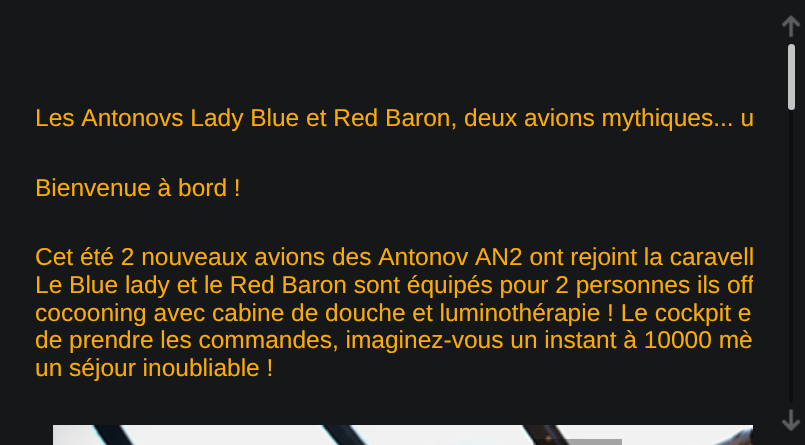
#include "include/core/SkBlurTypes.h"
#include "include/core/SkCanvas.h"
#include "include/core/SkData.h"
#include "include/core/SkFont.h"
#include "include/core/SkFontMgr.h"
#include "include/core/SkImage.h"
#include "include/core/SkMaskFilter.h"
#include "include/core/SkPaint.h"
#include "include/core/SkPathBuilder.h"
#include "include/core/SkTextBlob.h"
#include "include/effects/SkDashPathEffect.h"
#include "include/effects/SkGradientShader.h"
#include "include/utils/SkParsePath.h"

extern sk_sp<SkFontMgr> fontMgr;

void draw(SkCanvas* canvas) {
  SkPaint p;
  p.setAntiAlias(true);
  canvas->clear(SkColorSetRGB(21, 23, 25));
  canvas->drawImageRect(SkImages::DeferredFromEncodedData(SkData::MakeFromFileName("images/1.png")), SkRect::MakeLTRB(53, 425, 753, 445), SkSamplingOptions());
  p.setColor(SkColorSetARGB(82, 0, 0, 0));
  canvas->drawRect(SkRect::MakeLTRB(533, 439, 622, 445), p);
  canvas->drawImageRect(SkImages::DeferredFromEncodedData(SkData::MakeFromFileName("images/2.png")), SkRect::MakeLTRB(782, 15, 801, 38), SkSamplingOptions());
  p.setColor(SkColorSetRGB(13, 14, 15));
  canvas->drawRoundRect(SkRect::MakeLTRB(789, 44, 793, 403), 2, 2, p);
  p.setColor(SkColorSetARGB(191, 255, 255, 255));
  canvas->drawRoundRect(SkRect::MakeLTRB(788, 44, 795, 110), 3.5f, 3.5f, p);
  canvas->drawImageRect(SkImages::DeferredFromEncodedData(SkData::MakeFromFileName("images/3.png")), SkRect::MakeLTRB(782, 409, 801, 431), SkSamplingOptions());
  SkFont font1(fontMgr->matchFamilyStyle("Liberation Sans", SkFontStyle::Normal()), 24.5f);
  font1.setSubpixel(true);
  p.setColor(SkColorSetRGB(250, 172, 5));
  canvas->drawString("Les Antonovs Lady Blue et Red Baron, deux avions mythiques... u", 35, 126, font1, p);
  canvas->drawString("Bienvenue à bord !", 35, 196, font1, p);
  canvas->drawString("Cet été 2 nouveaux avions des Antonov AN2 ont rejoint la caravell", 35, 265, font1, p);
  canvas->save();
  canvas->clipRect(SkRect::MakeLTRB(0, 0, 753, 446));
  canvas->drawString("Le Blue lady et le Red Baron sont équipés pour 2 personnes ils off", 35, 293, font1, p);
  canvas->restore();
  canvas->drawString("cocooning avec cabine de douche et luminothérapie ! Le cockpit e", 35, 321, font1, p);
  canvas->drawString("de prendre les commandes, imaginez-vous un instant à 10000 mè", 35, 348, font1, p);
  canvas->drawString("un séjour inoubliable !", 35, 376, font1, p);
}
